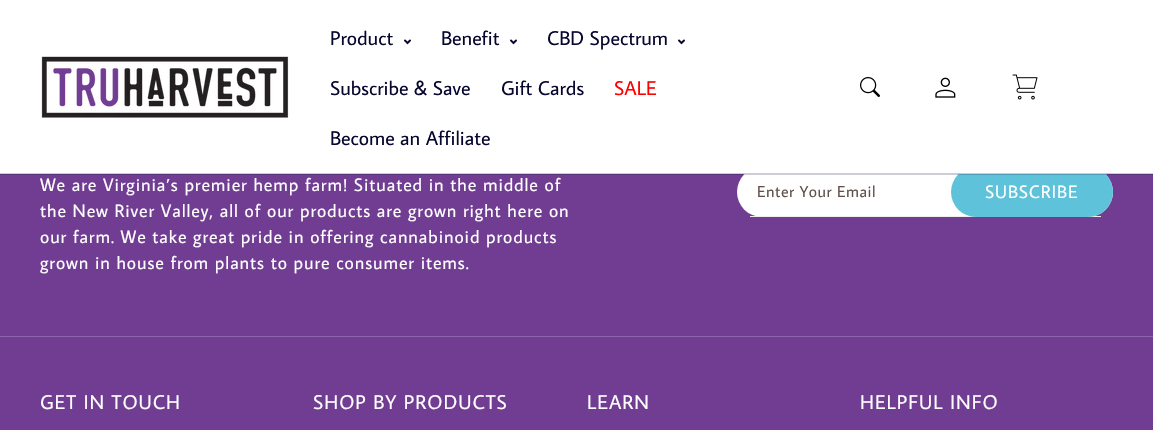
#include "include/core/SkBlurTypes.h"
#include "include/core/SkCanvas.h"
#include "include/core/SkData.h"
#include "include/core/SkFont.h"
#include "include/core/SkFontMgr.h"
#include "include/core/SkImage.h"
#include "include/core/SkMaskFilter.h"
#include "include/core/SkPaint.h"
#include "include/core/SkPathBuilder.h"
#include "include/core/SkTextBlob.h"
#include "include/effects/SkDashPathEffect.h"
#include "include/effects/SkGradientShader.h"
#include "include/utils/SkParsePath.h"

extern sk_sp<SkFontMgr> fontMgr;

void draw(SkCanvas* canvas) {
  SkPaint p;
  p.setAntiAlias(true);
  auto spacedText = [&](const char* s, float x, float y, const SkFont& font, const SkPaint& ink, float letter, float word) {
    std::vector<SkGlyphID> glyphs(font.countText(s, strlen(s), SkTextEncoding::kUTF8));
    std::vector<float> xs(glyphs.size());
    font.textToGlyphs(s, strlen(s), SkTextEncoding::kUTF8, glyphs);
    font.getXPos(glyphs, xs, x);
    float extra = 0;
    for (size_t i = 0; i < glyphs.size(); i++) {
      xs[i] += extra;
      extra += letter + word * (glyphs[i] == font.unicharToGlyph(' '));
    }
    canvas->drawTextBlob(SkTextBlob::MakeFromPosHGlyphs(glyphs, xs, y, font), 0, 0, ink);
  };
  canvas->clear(SkColorSetRGB(113, 61, 147));
  p.setColor(SK_ColorWHITE);
  canvas->drawRoundRect(SkRect::MakeLTRB(737, 167, 1113, 217), 25, 25, p);
  p.setColor(SkColorSetRGB(238, 238, 238));
  canvas->drawRect(SkRect::MakeLTRB(750, 216, 1101, 217), p);
  p.setColor(SkColorSetRGB(94, 195, 218));
  canvas->drawRoundRect(SkRect::MakeLTRB(951, 167, 1113, 217), 25, 25, p);
  p.setColor(SK_ColorWHITE);
  canvas->drawRect(SkRect::MakeLTRB(0, 0, 1153, 174), p);
  canvas->drawImageRect(SkImages::DeferredFromEncodedData(SkData::MakeFromFileName("images/1.png")), SkRect::MakeLTRB(41, 56, 289, 118), SkSamplingOptions());
  canvas->drawImageRect(SkImages::DeferredFromEncodedData(SkData::MakeFromFileName("images/2.png")), SkRect::MakeLTRB(404, 39, 411, 45), SkSamplingOptions());
  canvas->drawImageRect(SkImages::DeferredFromEncodedData(SkData::MakeFromFileName("images/2.png")), SkRect::MakeLTRB(510, 39, 517, 45), SkSamplingOptions());
  canvas->drawImageRect(SkImages::DeferredFromEncodedData(SkData::MakeFromFileName("images/2.png")), SkRect::MakeLTRB(678, 39, 685, 45), SkSamplingOptions());
  canvas->drawImageRect(SkImages::DeferredFromEncodedData(SkData::MakeFromFileName("images/3.png")), SkRect::MakeLTRB(860, 77, 880, 97), SkSamplingOptions());
  canvas->drawImageRect(SkImages::DeferredFromEncodedData(SkData::MakeFromFileName("images/4.png")), SkRect::MakeLTRB(935, 77, 956, 98), SkSamplingOptions());
  canvas->drawImageRect(SkImages::DeferredFromEncodedData(SkData::MakeFromFileName("images/5.png")), SkRect::MakeLTRB(1012, 74, 1038, 100), SkSamplingOptions());
  p.setColor(SkColorSetARGB(51, 7, 6, 47));
  canvas->drawRect(SkRect::MakeLTRB(0, 173, 1153, 175), p);
  p.setColor(SkColorSetRGB(141, 100, 169));
  canvas->drawRect(SkRect::MakeLTRB(0, 336, 1153, 337), p);
  SkFont font1(fontMgr->matchFamilyStyle("Average Sans", SkFontStyle::Normal()), 20);
  font1.setSubpixel(true);
  p.setColor(SkColorSetRGB(7, 6, 47));
  canvas->drawString("Product", 330, 45, font1, p);
  canvas->drawString("Benefit", 441, 45, font1, p);
  canvas->drawString("CBD Spectrum", 547, 45, font1, p);
  canvas->drawString("Subscribe & Save", 330, 95, font1, p);
  canvas->drawString("Gift Cards", 501, 95, font1, p);
  p.setColor(SkColorSetRGB(255, 0, 0));
  canvas->drawString("SALE", 614, 95, font1, p);
  p.setColor(SkColorSetRGB(7, 6, 47));
  canvas->drawString("Become an Affiliate", 330, 145, font1, p);
  SkFont font2(fontMgr->matchFamilyStyle("Average Sans", SkFontStyle::Normal()), 18);
  font2.setSubpixel(true);
  p.setColor(SK_ColorWHITE);
  spacedText("We are Virginia’s premier hemp farm! Situated in the middle of", 40, 191, font2, p, 0.9f, 0);
  spacedText("the New River Valley, all of our products are grown right here on", 40, 217, font2, p, 0.9f, 0);
  spacedText("our farm. We take great pride in offering cannabinoid products", 40, 243, font2, p, 0.9f, 0);
  spacedText("grown in house from plants to pure consumer items.", 40, 269, font2, p, 0.9f, 0);
  SkFont font3(fontMgr->matchFamilyStyle("Average Sans", SkFontStyle::Normal()), 16);
  font3.setSubpixel(true);
  p.setColor(SkColorSetRGB(95, 82, 77));
  spacedText("Enter Your Email", 757, 197, font3, p, 0.5f, 0);
  p.setColor(SK_ColorWHITE);
  spacedText("SUBSCRIBE", 985, 198, font2, p, 0.9f, 0);
  spacedText("GET IN TOUCH", 40, 409, font1, p, 1, 0);
  spacedText("SHOP BY PRODUCTS", 313, 409, font1, p, 1, 0);
  spacedText("LEARN", 587, 409, font1, p, 1, 0);
  spacedText("HELPFUL INFO", 860, 409, font1, p, 1, 0);
}
